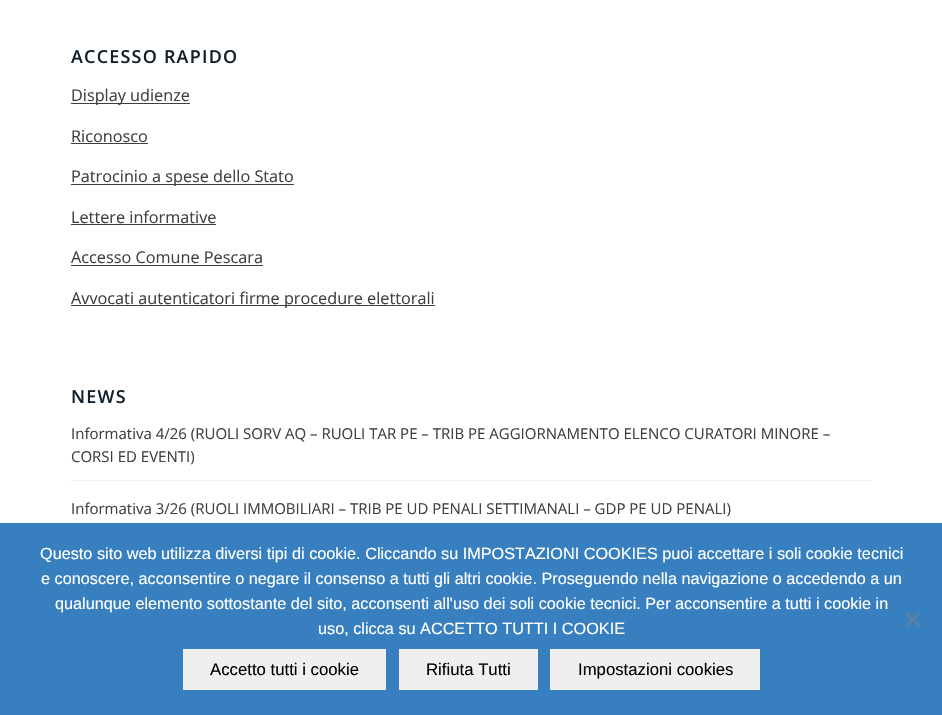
#include "include/core/SkBlurTypes.h"
#include "include/core/SkCanvas.h"
#include "include/core/SkData.h"
#include "include/core/SkFont.h"
#include "include/core/SkFontMgr.h"
#include "include/core/SkImage.h"
#include "include/core/SkMaskFilter.h"
#include "include/core/SkPaint.h"
#include "include/core/SkPathBuilder.h"
#include "include/core/SkTextBlob.h"
#include "include/effects/SkDashPathEffect.h"
#include "include/effects/SkGradientShader.h"
#include "include/utils/SkParsePath.h"

extern sk_sp<SkFontMgr> fontMgr;

void draw(SkCanvas* canvas) {
  SkPaint p;
  p.setAntiAlias(true);
  auto spacedText = [&](const char* s, float x, float y, const SkFont& font, const SkPaint& ink, float letter, float word) {
    std::vector<SkGlyphID> glyphs(font.countText(s, strlen(s), SkTextEncoding::kUTF8));
    std::vector<float> xs(glyphs.size());
    font.textToGlyphs(s, strlen(s), SkTextEncoding::kUTF8, glyphs);
    font.getXPos(glyphs, xs, x);
    float extra = 0;
    for (size_t i = 0; i < glyphs.size(); i++) {
      xs[i] += extra;
      extra += letter + word * (glyphs[i] == font.unicharToGlyph(' '));
    }
    canvas->drawTextBlob(SkTextBlob::MakeFromPosHGlyphs(glyphs, xs, y, font), 0, 0, ink);
  };
  canvas->clear(SK_ColorWHITE);
  p.setColor(SkColorSetRGB(64, 64, 64));
  canvas->drawRect(SkRect::MakeLTRB(71, 103, 190, 104), p);
  canvas->drawRect(SkRect::MakeLTRB(71, 143, 148, 144), p);
  canvas->drawRect(SkRect::MakeLTRB(71, 184, 294, 185), p);
  canvas->drawRect(SkRect::MakeLTRB(71, 224, 216, 225), p);
  canvas->drawRect(SkRect::MakeLTRB(71, 265, 263, 266), p);
  canvas->drawRect(SkRect::MakeLTRB(71, 305, 435, 306), p);
  p.setColor(SkColorSetRGB(238, 238, 238));
  canvas->drawRect(SkRect::MakeLTRB(71, 480, 871, 481), p);
  p.setColor(SkColorSetRGB(55, 127, 191));
  canvas->drawRect(SkRect::MakeLTRB(0, 523, 942, 715), p);
  p.setColor(SkColorSetRGB(92, 128, 160));
  canvas->drawPath(SkPathBuilder().moveTo(918, 612).lineTo(920, 613.5f).lineTo(907, 627).lineTo(905, 625).close().detach(), p);
  canvas->drawPath(SkPathBuilder().moveTo(905, 613.5f).lineTo(907, 612).lineTo(920, 625).lineTo(918, 627).close().detach(), p);
  p.setColor(SkColorSetRGB(239, 239, 239));
  canvas->drawRect(SkRect::MakeLTRB(183, 649, 386, 690), p);
  canvas->drawRect(SkRect::MakeLTRB(399, 649, 538, 690), p);
  canvas->drawRect(SkRect::MakeLTRB(550, 649, 760, 690), p);
  SkFont font1(fontMgr->matchFamilyStyle("Open Sans", SkFontStyle(600, SkFontStyle::kNormal_Width, SkFontStyle::kUpright_Slant)), 17.9f);
  font1.setSubpixel(true);
  p.setColor(SkColorSetRGB(17, 32, 42));
  spacedText("ACCESSO RAPIDO", 71, 63, font1, p, 1.25f, 0);
  SkFont font2(fontMgr->matchFamilyStyle("Open Sans", SkFontStyle::Normal()), 16.25f);
  font2.setSubpixel(true);
  p.setColor(SkColorSetRGB(64, 64, 64));
  canvas->drawString("Display udienze", 71, 101, font2, p);
  canvas->drawString("Riconosco", 71, 142, font2, p);
  canvas->drawString("Patrocinio a spese dello Stato", 71, 182, font2, p);
  canvas->drawString("Lettere informative", 71, 223, font2, p);
  canvas->drawString("Accesso Comune Pescara", 71, 263, font2, p);
  canvas->drawString("Avvocati autenticatori firme procedure elettorali", 71, 304, font2, p);
  p.setColor(SkColorSetRGB(17, 32, 42));
  spacedText("NEWS", 71, 403, font1, p, 1.25f, 0);
  SkFont font3(fontMgr->matchFamilyStyle("Open Sans", SkFontStyle::Normal()), 15);
  font3.setSubpixel(true);
  p.setColor(SkColorSetRGB(64, 64, 64));
  canvas->drawString("Informativa 4/26 (RUOLI SORV AQ – RUOLI TAR PE – TRIB PE AGGIORNAMENTO ELENCO CURATORI MINORE –", 71, 439, font3, p);
  canvas->drawString("CORSI ED EVENTI)", 71, 462, font3, p);
  canvas->drawString("Informativa 3/26 (RUOLI IMMOBILIARI – TRIB PE UD PENALI SETTIMANALI – GDP PE UD PENALI)", 71, 514, font3, p);
  SkFont font4(fontMgr->matchFamilyStyle("Liberation Sans", SkFontStyle::Normal()), 16.25f);
  font4.setSubpixel(true);
  p.setColor(SK_ColorWHITE);
  canvas->drawString("Questo sito web utilizza diversi tipi di cookie. Cliccando su IMPOSTAZIONI COOKIES puoi accettare i soli cookie tecnici", 40, 559, font4, p);
  canvas->drawString("e conoscere, acconsentire o negare il consenso a tutti gli altri cookie. Proseguendo nella navigazione o accedendo a un", 41, 584, font4, p);
  canvas->drawString("qualunque elemento sottostante del sito, acconsenti all'uso dei soli cookie tecnici. Per acconsentire a tutti i cookie in", 55, 609, font4, p);
  canvas->drawString("uso, clicca su ACCETTO TUTTI I COOKIE", 318, 634, font4, p);
  SkFont font5(fontMgr->matchFamilyStyle("Liberation Sans", SkFontStyle::Normal()), 16.75f);
  font5.setSubpixel(true);
  p.setColor(SK_ColorBLACK);
  canvas->drawString("Accetto tutti i cookie", 210, 675, font5, p);
  canvas->drawString("Rifiuta Tutti", 426, 675, font5, p);
  canvas->drawString("Impostazioni cookies", 578, 675, font5, p);
}
